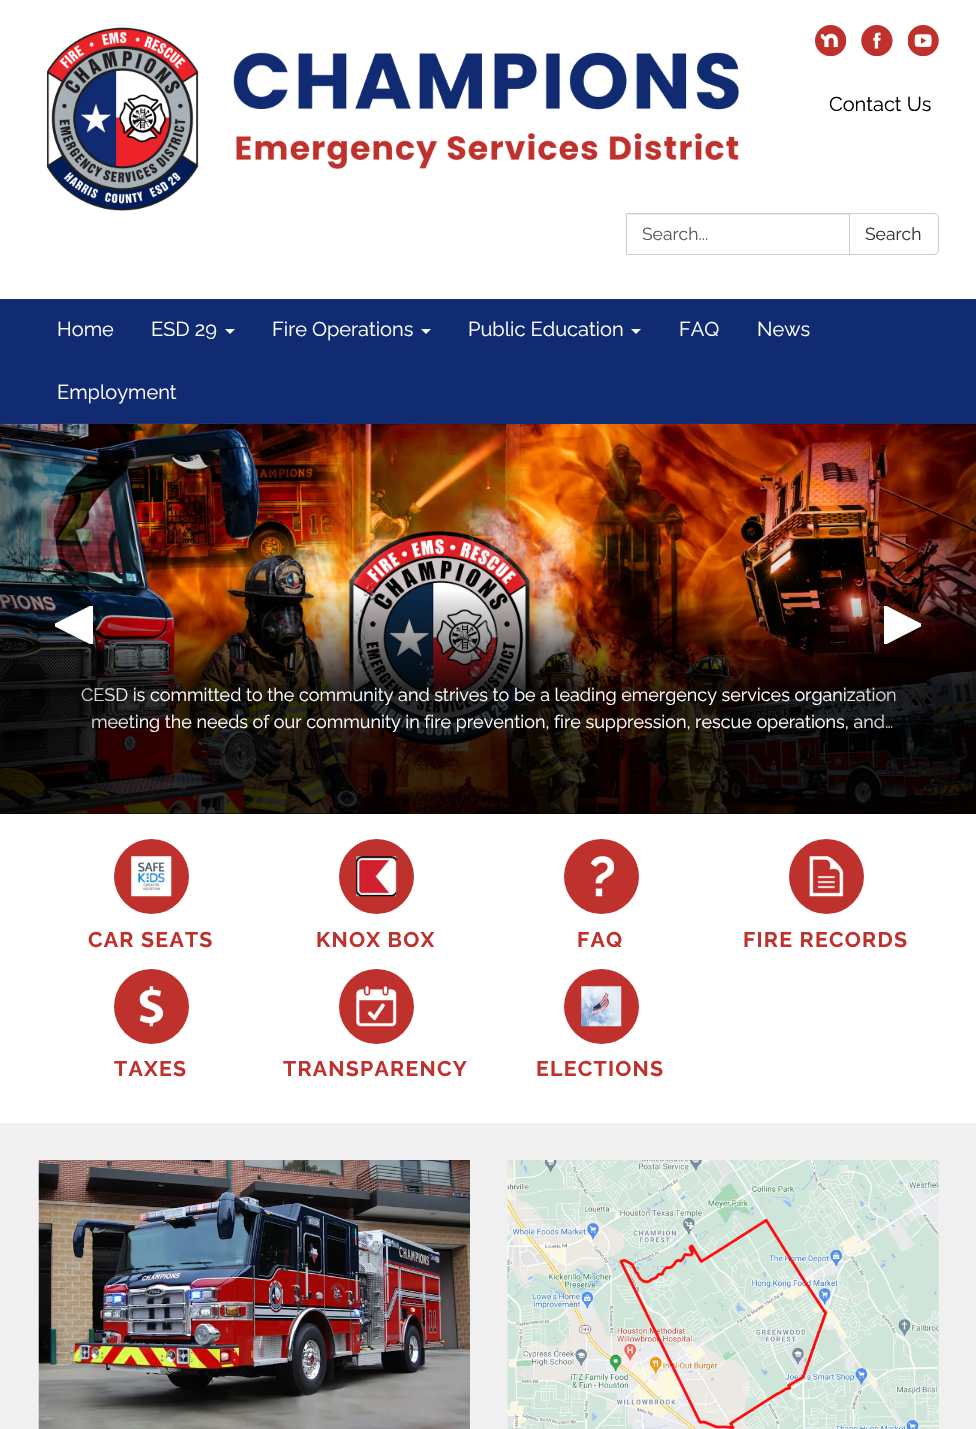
#include "include/core/SkBlurTypes.h"
#include "include/core/SkCanvas.h"
#include "include/core/SkData.h"
#include "include/core/SkFont.h"
#include "include/core/SkFontMgr.h"
#include "include/core/SkImage.h"
#include "include/core/SkMaskFilter.h"
#include "include/core/SkPaint.h"
#include "include/core/SkPathBuilder.h"
#include "include/core/SkTextBlob.h"
#include "include/effects/SkDashPathEffect.h"
#include "include/effects/SkGradientShader.h"
#include "include/utils/SkParsePath.h"

extern sk_sp<SkFontMgr> fontMgr;

void draw(SkCanvas* canvas) {
  SkPaint p;
  p.setAntiAlias(true);
  auto spacedText = [&](const char* s, float x, float y, const SkFont& font, const SkPaint& ink, float letter, float word) {
    std::vector<SkGlyphID> glyphs(font.countText(s, strlen(s), SkTextEncoding::kUTF8));
    std::vector<float> xs(glyphs.size());
    font.textToGlyphs(s, strlen(s), SkTextEncoding::kUTF8, glyphs);
    font.getXPos(glyphs, xs, x);
    float extra = 0;
    for (size_t i = 0; i < glyphs.size(); i++) {
      xs[i] += extra;
      extra += letter + word * (glyphs[i] == font.unicharToGlyph(' '));
    }
    canvas->drawTextBlob(SkTextBlob::MakeFromPosHGlyphs(glyphs, xs, y, font), 0, 0, ink);
  };
  canvas->clear(SkColorSetRGB(16, 43, 114));
  p.setColor(SK_ColorWHITE);
  canvas->drawRect(SkRect::MakeLTRB(0, 0, 976, 299), p);
  canvas->drawImageRect(SkImages::DeferredFromEncodedData(SkData::MakeFromFileName("images/1.png")), SkRect::MakeLTRB(47, 27, 739, 211), SkSamplingOptions());
  canvas->drawImageRect(SkImages::DeferredFromEncodedData(SkData::MakeFromFileName("images/2.png")), SkRect::MakeLTRB(815, 25, 846, 56), SkSamplingOptions());
  canvas->drawImageRect(SkImages::DeferredFromEncodedData(SkData::MakeFromFileName("images/3.png")), SkRect::MakeLTRB(861, 25, 893, 56), SkSamplingOptions());
  canvas->drawImageRect(SkImages::DeferredFromEncodedData(SkData::MakeFromFileName("images/4.png")), SkRect::MakeLTRB(908, 25, 939, 56), SkSamplingOptions());
  p.setColor(SkColorSetRGB(236, 236, 236));
  canvas->drawRect(SkRect::MakeLTRB(628, 214, 849, 215), p);
  p.setStyle(SkPaint::kStroke_Style);
  p.setStrokeWidth(1);
  p.setColor(SkColorSetRGB(204, 204, 204));
  canvas->drawRect(SkRect::MakeLTRB(626.5f, 213.5f, 849.5f, 254.5f), p);
  p.setStyle(SkPaint::kFill_Style);
  p.setColor(SK_ColorWHITE);
  canvas->drawPath(SkPathBuilder().moveTo(849.5f, 213.5f).lineTo(934, 213.5f).cubicTo(936.5f, 213.5f, 938.5f, 215.5f, 938.5f, 218).lineTo(938.5f, 250).cubicTo(938.5f, 252.5f, 936.5f, 254.5f, 934, 254.5f).lineTo(849.5f, 254.5f).close().detach(), p);
  p.setStyle(SkPaint::kStroke_Style);
  p.setColor(SkColorSetRGB(204, 204, 204));
  canvas->drawPath(SkPathBuilder().moveTo(849.5f, 213.5f).lineTo(934, 213.5f).cubicTo(936.5f, 213.5f, 938.5f, 215.5f, 938.5f, 218).lineTo(938.5f, 250).cubicTo(938.5f, 252.5f, 936.5f, 254.5f, 934, 254.5f).lineTo(849.5f, 254.5f).close().detach(), p);
  p.setStyle(SkPaint::kFill_Style);
  p.setColor(SK_ColorWHITE);
  canvas->drawPath(SkPathBuilder().moveTo(225, 329).lineTo(235, 329).lineTo(230, 334).close().detach(), p);
  canvas->drawPath(SkPathBuilder().moveTo(421, 329).lineTo(431, 329).lineTo(426, 334).close().detach(), p);
  canvas->drawPath(SkPathBuilder().moveTo(631, 329).lineTo(641, 329).lineTo(636, 334).close().detach(), p);
  canvas->drawRect(SkRect::MakeLTRB(0, 814, 976, 1123), p);
  p.setColor(SK_ColorBLACK);
  canvas->drawRect(SkRect::MakeLTRB(0, 813, 976, 814), p);
  canvas->drawImageRect(SkImages::DeferredFromEncodedData(SkData::MakeFromFileName("images/5.png")), SkRect::MakeLTRB(0, 423, 976, 814), SkSamplingOptions());
  {
    const SkColor colors[] = {SkColorSetARGB(204, 0, 0, 0), SkColorSetARGB(0, 0, 0, 0)};
    const float stops[] = {0.56f, 1};
    const SkPoint ends[] = {{488, 814}, {488, 589}};
    p.setShader(SkGradientShader::MakeLinear(ends, colors, stops, 2, SkTileMode::kClamp));
    p.setAlpha(255);
  }
  canvas->drawRect(SkRect::MakeLTRB(0, 592, 976, 814), p);
  p.setShader(nullptr);
  p.setColor(SkColorSetRGB(190, 49, 45));
  canvas->drawCircle(151.5f, 876.5f, 37.5f, p);
  canvas->drawImageRect(SkImages::DeferredFromEncodedData(SkData::MakeFromFileName("images/6.png")), SkRect::MakeLTRB(131, 856, 172, 897), SkSamplingOptions());
  canvas->drawCircle(376.5f, 876.5f, 37.5f, p);
  canvas->drawImageRect(SkImages::DeferredFromEncodedData(SkData::MakeFromFileName("images/7.png")), SkRect::MakeLTRB(356, 856, 397, 897), SkSamplingOptions());
  canvas->drawCircle(601.5f, 876.5f, 37.5f, p);
  canvas->drawImageRect(SkImages::DeferredFromEncodedData(SkData::MakeFromFileName("images/8.png")), SkRect::MakeLTRB(590, 856, 614, 897), SkSamplingOptions());
  canvas->drawCircle(826.5f, 876.5f, 37.5f, p);
  canvas->drawImageRect(SkImages::DeferredFromEncodedData(SkData::MakeFromFileName("images/9.png")), SkRect::MakeLTRB(809, 856, 844, 897), SkSamplingOptions());
  canvas->drawCircle(151.5f, 1006.5f, 37.5f, p);
  canvas->drawImageRect(SkImages::DeferredFromEncodedData(SkData::MakeFromFileName("images/10.png")), SkRect::MakeLTRB(139, 986, 164, 1027), SkSamplingOptions());
  canvas->drawCircle(376.5f, 1006.5f, 37.5f, p);
  canvas->drawImageRect(SkImages::DeferredFromEncodedData(SkData::MakeFromFileName("images/11.png")), SkRect::MakeLTRB(356, 986, 397, 1027), SkSamplingOptions());
  canvas->drawCircle(601.5f, 1006.5f, 37.5f, p);
  canvas->drawImageRect(SkImages::DeferredFromEncodedData(SkData::MakeFromFileName("images/12.png")), SkRect::MakeLTRB(581, 986, 622, 1027), SkSamplingOptions());
  p.setColor(SkColorSetRGB(240, 240, 240));
  canvas->drawRect(SkRect::MakeLTRB(0, 1123, 976, 1429), p);
  canvas->drawImageRect(SkImages::DeferredFromEncodedData(SkData::MakeFromFileName("images/13.png")), SkRect::MakeLTRB(38, 1160, 470, 1429), SkSamplingOptions());
  canvas->drawImageRect(SkImages::DeferredFromEncodedData(SkData::MakeFromFileName("images/14.png")), SkRect::MakeLTRB(507, 1160, 939, 1429), SkSamplingOptions());
  SkFont font1(fontMgr->matchFamilyStyle("Raleway", SkFontStyle::Normal()), 20);
  font1.setSubpixel(true);
  p.setColor(SK_ColorBLACK);
  canvas->drawString("Contact Us", 829, 111, font1, p);
  SkFont font2(fontMgr->matchFamilyStyle("Raleway", SkFontStyle::Normal()), 17.5f);
  font2.setSubpixel(true);
  p.setColor(SkColorSetRGB(91, 91, 91));
  canvas->drawString("Search...", 642, 240, font2, p);
  p.setColor(SkColorSetRGB(51, 51, 51));
  canvas->drawString("Search", 865, 240, font2, p);
  p.setColor(SK_ColorWHITE);
  canvas->drawString("Home", 57, 336, font1, p);
  canvas->drawString("ESD 29", 151, 336, font1, p);
  canvas->drawString("Fire Operations", 272, 336, font1, p);
  canvas->drawString("Public Education", 468, 336, font1, p);
  canvas->drawString("FAQ", 679, 336, font1, p);
  canvas->drawString("News", 757, 336, font1, p);
  canvas->drawString("Employment", 57, 399, font1, p);
  SkFont font3(fontMgr->matchFamilyStyle("Raleway", SkFontStyle::Normal()), 18);
  font3.setSubpixel(true);
  canvas->drawString("CESD is committed to the community and strives to be a leading emergency services organization", 81, 701, font3, p);
  canvas->drawString("meeting the needs of our community in fire prevention, fire suppression, rescue operations, and…", 91, 728, font3, p);
  {
    const SkColor colors[] = {SkColorSetARGB(128, 0, 0, 0), SkColorSetARGB(0, 0, 0, 0)};
    const float stops[] = {0, 1};
    const SkPoint ends[] = {{0, 619}, {146, 619}};
    p.setShader(SkGradientShader::MakeLinear(ends, colors, stops, 2, SkTileMode::kClamp));
    p.setAlpha(255);
  }
  canvas->drawRect(SkRect::MakeLTRB(0, 424, 140, 814), p);
  p.setShader(nullptr);
  p.setColor(SK_ColorWHITE);
  canvas->drawPath(SkPathBuilder().moveTo(92.5f, 606).lineTo(92.5f, 644).lineTo(55, 625).close().detach(), p);
  canvas->save();
  canvas->clipRect(SkRect::MakeLTRB(55, 606, 93, 644));
  p.setStyle(SkPaint::kStroke_Style);
  p.setStrokeWidth(2.5f);
  canvas->drawPath(SkPathBuilder().moveTo(92.5f, 606).lineTo(92.5f, 644).lineTo(55, 625).close().detach(), p);
  canvas->restore();
  p.setStyle(SkPaint::kFill_Style);
  {
    const SkColor colors[] = {SkColorSetARGB(0, 0, 0, 0), SkColorSetARGB(128, 0, 0, 0)};
    const float stops[] = {0, 1};
    const SkPoint ends[] = {{830, 619}, {976, 619}};
    p.setShader(SkGradientShader::MakeLinear(ends, colors, stops, 2, SkTileMode::kClamp));
    p.setAlpha(255);
  }
  canvas->drawRect(SkRect::MakeLTRB(836, 424, 976, 814), p);
  p.setShader(nullptr);
  p.setColor(SK_ColorWHITE);
  canvas->drawPath(SkPathBuilder().moveTo(884, 606).lineTo(921, 625).lineTo(884, 644).close().detach(), p);
  canvas->save();
  canvas->clipRect(SkRect::MakeLTRB(884, 606, 921, 644));
  p.setStyle(SkPaint::kStroke_Style);
  canvas->drawPath(SkPathBuilder().moveTo(884, 606).lineTo(921, 625).lineTo(884, 644).close().detach(), p);
  canvas->restore();
  SkFont font4(fontMgr->matchFamilyStyle("Raleway", SkFontStyle::Bold()), 21.25f);
  font4.setSubpixel(true);
  p.setStyle(SkPaint::kFill_Style);
  p.setColor(SkColorSetRGB(190, 49, 45));
  spacedText("CAR SEATS", 88, 947, font4, p, 1.25f, 0);
  spacedText("KNOX BOX", 316, 947, font4, p, 1.25f, 0);
  spacedText("FAQ", 577, 947, font4, p, 1.25f, 0);
  spacedText("FIRE RECORDS", 743, 947, font4, p, 1.25f, 0);
  spacedText("TAXES", 114, 1076, font4, p, 1.25f, 0);
  spacedText("TRANSPARENCY", 283, 1076, font4, p, 1.25f, 0);
  spacedText("ELECTIONS", 536, 1076, font4, p, 1.25f, 0);
}
